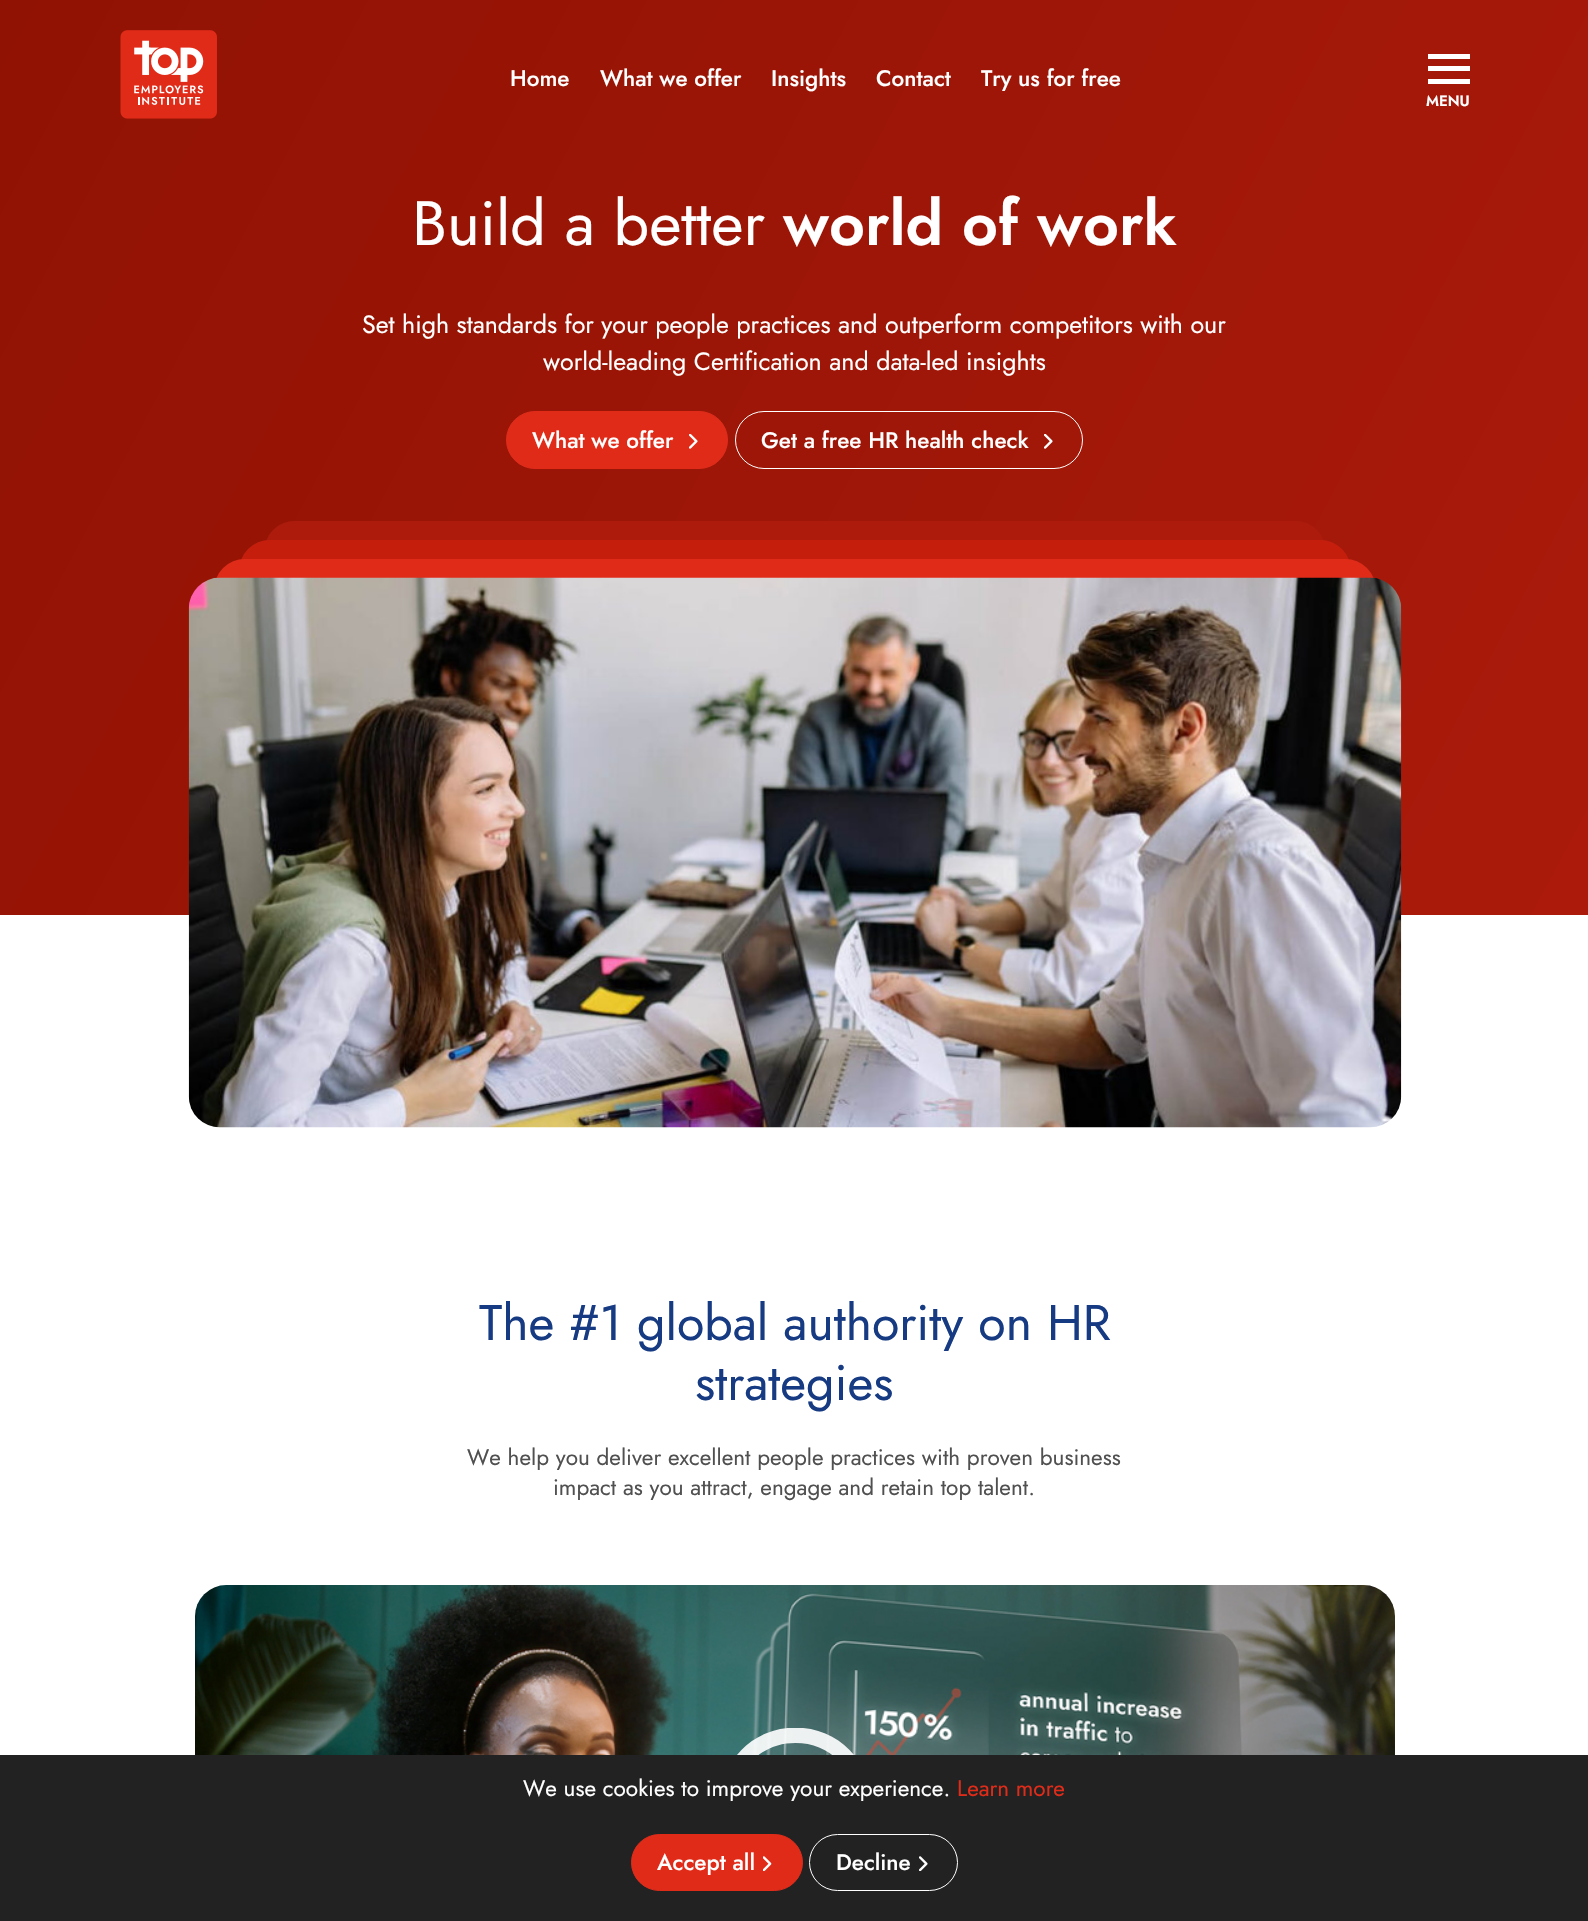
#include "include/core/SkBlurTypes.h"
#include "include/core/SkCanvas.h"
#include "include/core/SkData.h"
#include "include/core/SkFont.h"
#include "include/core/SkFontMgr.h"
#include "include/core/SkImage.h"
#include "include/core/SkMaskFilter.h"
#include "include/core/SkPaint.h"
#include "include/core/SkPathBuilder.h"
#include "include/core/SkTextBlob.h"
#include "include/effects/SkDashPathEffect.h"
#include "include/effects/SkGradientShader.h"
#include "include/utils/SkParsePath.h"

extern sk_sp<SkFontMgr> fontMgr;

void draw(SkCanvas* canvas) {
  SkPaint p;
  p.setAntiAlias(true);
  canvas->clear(SK_ColorWHITE);
  {
    const SkColor colors[] = {SkColorSetRGB(144, 18, 3), SkColorSetRGB(173, 27, 12)};
    const float stops[] = {0, 1};
    const SkPoint ends[] = {{-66, 125}, {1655, 1040}};
    p.setShader(SkGradientShader::MakeLinear(ends, colors, stops, 2, SkTileMode::kClamp));
    p.setAlpha(255);
  }
  canvas->drawRect(SkRect::MakeLTRB(0, 0, 1588, 915), p);
  canvas->drawImageRect(SkImages::DeferredFromEncodedData(SkData::MakeFromFileName("images/1.png")), SkRect::MakeLTRB(120, 30, 217, 119), SkSamplingOptions());
  p.setShader(nullptr);
  p.setColor(SK_ColorWHITE);
  canvas->drawRect(SkRect::MakeLTRB(1428, 54, 1470, 59), p);
  canvas->drawRect(SkRect::MakeLTRB(1428, 66, 1470, 71), p);
  canvas->drawRect(SkRect::MakeLTRB(1428, 79, 1470, 84), p);
  p.setColor(SkColorSetRGB(224, 43, 25));
  canvas->drawRoundRect(SkRect::MakeLTRB(506.5f, 411.5f, 727.5f, 468.5f), 28.5f, 28.5f, p);
  p.setStyle(SkPaint::kStroke_Style);
  p.setStrokeWidth(1);
  canvas->drawRoundRect(SkRect::MakeLTRB(506.5f, 411.5f, 727.5f, 468.5f), 28.5f, 28.5f, p);
  canvas->drawImageRect(SkImages::DeferredFromEncodedData(SkData::MakeFromFileName("images/2.png")), SkRect::MakeLTRB(689, 434, 698, 449), SkSamplingOptions());
  p.setColor(SK_ColorWHITE);
  canvas->drawRoundRect(SkRect::MakeLTRB(735.5f, 411.5f, 1082.5f, 468.5f), 28.5f, 28.5f, p);
  canvas->drawImageRect(SkImages::DeferredFromEncodedData(SkData::MakeFromFileName("images/3.png")), SkRect::MakeLTRB(1044, 434, 1053, 449), SkSamplingOptions());
  p.setStyle(SkPaint::kFill_Style);
  p.setColor(SkColorSetRGB(173, 27, 12));
  canvas->drawRoundRect(SkRect::MakeLTRB(264, 521, 1326, 1071), 31, 31, p);
  p.setColor(SkColorSetRGB(197, 30, 13));
  canvas->drawRoundRect(SkRect::MakeLTRB(239, 540, 1351, 1090), 31, 31, p);
  p.setColor(SkColorSetRGB(224, 43, 25));
  canvas->drawRoundRect(SkRect::MakeLTRB(214, 559, 1376, 1109), 31, 31, p);
  canvas->drawImageRect(SkImages::DeferredFromEncodedData(SkData::MakeFromFileName("images/4.png")), SkRect::MakeLTRB(188, 577, 1402, 1128), SkSamplingOptions());
  canvas->drawImageRect(SkImages::DeferredFromEncodedData(SkData::MakeFromFileName("images/5.png")), SkRect::MakeLTRB(195, 1585, 1395, 1755), SkSamplingOptions());
  canvas->drawImageRect(SkImages::DeferredFromEncodedData(SkData::MakeFromFileName("images/6.png")), SkRect::MakeLTRB(737, 1728, 854, 1755), SkSamplingOptions());
  p.setColor(SkColorSetRGB(34, 34, 34));
  canvas->drawRect(SkRect::MakeLTRB(0, 1755, 1588, 1921), p);
  p.setColor(SkColorSetRGB(224, 43, 25));
  canvas->drawRoundRect(SkRect::MakeLTRB(631.5f, 1834.5f, 802.5f, 1890.5f), 28, 28, p);
  p.setStyle(SkPaint::kStroke_Style);
  canvas->drawRoundRect(SkRect::MakeLTRB(631.5f, 1834.5f, 802.5f, 1890.5f), 28, 28, p);
  canvas->drawImageRect(SkImages::DeferredFromEncodedData(SkData::MakeFromFileName("images/7.png")), SkRect::MakeLTRB(763, 1856, 772, 1871), SkSamplingOptions());
  p.setColor(SK_ColorWHITE);
  canvas->drawRoundRect(SkRect::MakeLTRB(809.5f, 1834.5f, 957.5f, 1890.5f), 28, 28, p);
  canvas->drawImageRect(SkImages::DeferredFromEncodedData(SkData::MakeFromFileName("images/8.png")), SkRect::MakeLTRB(919, 1856, 928, 1871), SkSamplingOptions());
  SkFont font1(fontMgr->matchFamilyStyle("Jost", SkFontStyle(500, SkFontStyle::kNormal_Width, SkFontStyle::kUpright_Slant)), 22.5f);
  font1.setSubpixel(true);
  p.setStyle(SkPaint::kFill_Style);
  canvas->drawString("Home", 510, 86, font1, p);
  canvas->drawString("What we offer", 600, 86, font1, p);
  canvas->drawString("Insights", 771, 86, font1, p);
  canvas->drawString("Contact", 876, 86, font1, p);
  canvas->drawString("Try us for free", 981, 86, font1, p);
  SkFont font2(fontMgr->matchFamilyStyle("Jost", SkFontStyle(600, SkFontStyle::kNormal_Width, SkFontStyle::kUpright_Slant)), 15);
  font2.setSubpixel(true);
  canvas->drawString("MENU", 1426, 106, font2, p);
  SkFont font3(fontMgr->matchFamilyStyle("Jost", SkFontStyle::Normal()), 62.5f);
  font3.setSubpixel(true);
  canvas->drawString("Build a better", 412, 245, font3, p);
  SkFont font4(fontMgr->matchFamilyStyle("Jost", SkFontStyle(600, SkFontStyle::kNormal_Width, SkFontStyle::kUpright_Slant)), 62.5f);
  font4.setSubpixel(true);
  canvas->drawString("world of work", 783, 245, font4, p);
  SkFont font5(fontMgr->matchFamilyStyle("Jost", SkFontStyle::Normal()), 25);
  font5.setSubpixel(true);
  canvas->drawString("Set high standards for your people practices and outperform competitors with our", 362, 333, font5, p);
  canvas->drawString("world-leading Certification and data-led insights", 543, 370, font5, p);
  canvas->drawString("What we offer", 532, 448, font1, p);
  canvas->drawString("Get a free HR health check", 761, 448, font1, p);
  SkFont font6(fontMgr->matchFamilyStyle("Jost", SkFontStyle::Normal()), 50);
  font6.setSubpixel(true);
  p.setColor(SkColorSetRGB(22, 59, 131));
  canvas->drawString("The #1 global authority on HR", 479, 1340, font6, p);
  canvas->drawString("strategies", 695, 1400, font6, p);
  SkFont font7(fontMgr->matchFamilyStyle("Jost", SkFontStyle::Normal()), 22.5f);
  font7.setSubpixel(true);
  p.setColor(SkColorSetRGB(80, 80, 80));
  canvas->drawString("We help you deliver excellent people practices with proven business", 467, 1465, font7, p);
  canvas->drawString("impact as you attract, engage and retain top talent.", 553, 1495, font7, p);
  p.setColor(SK_ColorWHITE);
  canvas->drawString("We use cookies to improve your experience.", 523, 1796, font7, p);
  p.setColor(SkColorSetRGB(224, 43, 25));
  canvas->drawString("Learn more", 957, 1796, font7, p);
  p.setColor(SK_ColorWHITE);
  canvas->drawString("Accept all", 657, 1870, font1, p);
  canvas->drawString("Decline", 836, 1870, font1, p);
}
